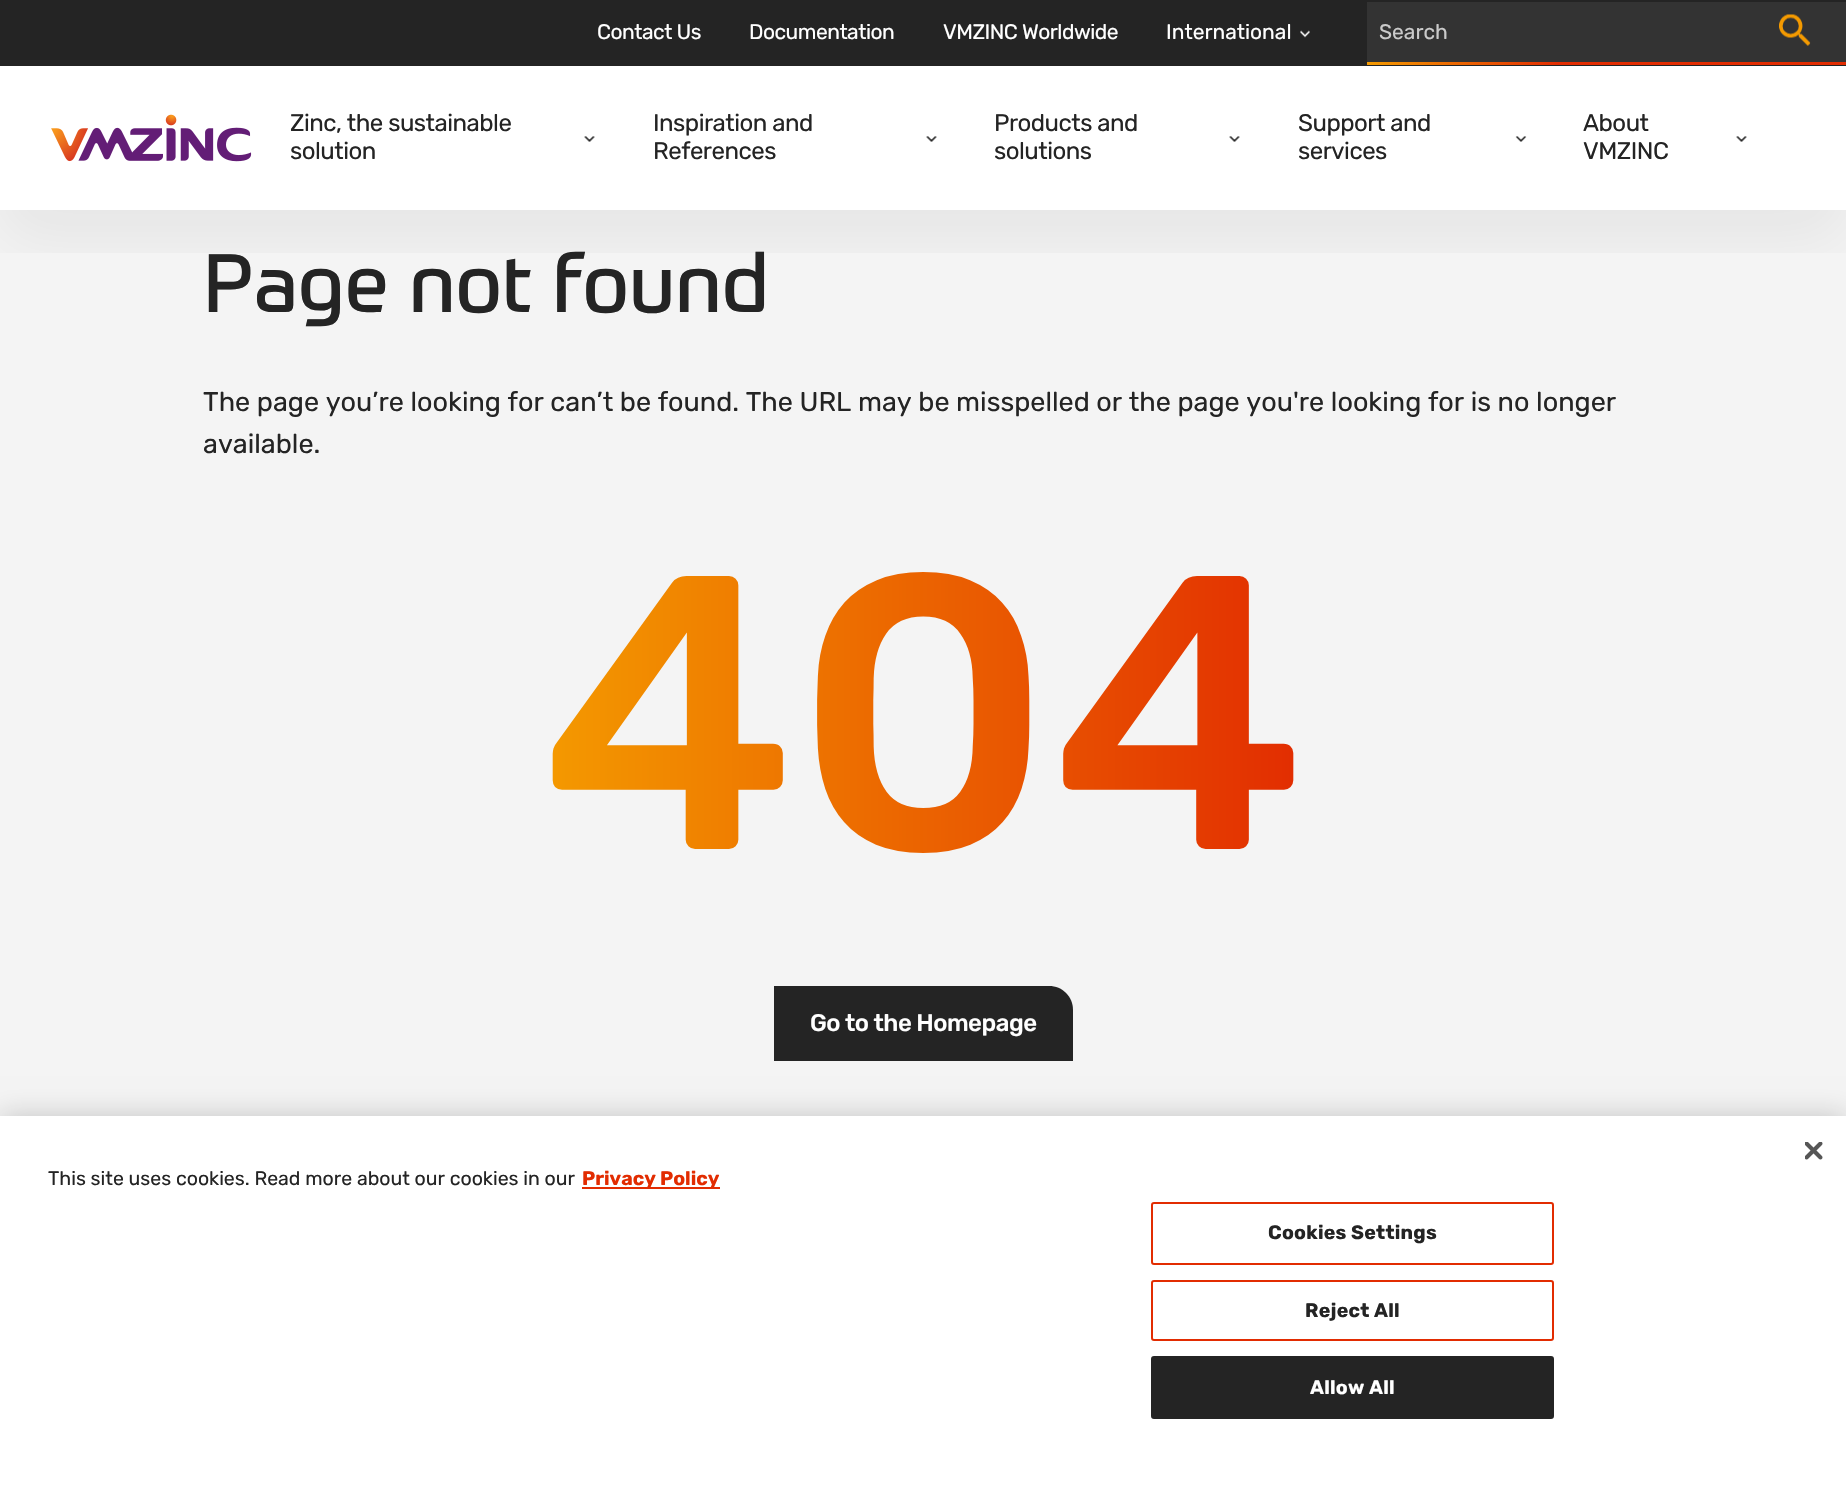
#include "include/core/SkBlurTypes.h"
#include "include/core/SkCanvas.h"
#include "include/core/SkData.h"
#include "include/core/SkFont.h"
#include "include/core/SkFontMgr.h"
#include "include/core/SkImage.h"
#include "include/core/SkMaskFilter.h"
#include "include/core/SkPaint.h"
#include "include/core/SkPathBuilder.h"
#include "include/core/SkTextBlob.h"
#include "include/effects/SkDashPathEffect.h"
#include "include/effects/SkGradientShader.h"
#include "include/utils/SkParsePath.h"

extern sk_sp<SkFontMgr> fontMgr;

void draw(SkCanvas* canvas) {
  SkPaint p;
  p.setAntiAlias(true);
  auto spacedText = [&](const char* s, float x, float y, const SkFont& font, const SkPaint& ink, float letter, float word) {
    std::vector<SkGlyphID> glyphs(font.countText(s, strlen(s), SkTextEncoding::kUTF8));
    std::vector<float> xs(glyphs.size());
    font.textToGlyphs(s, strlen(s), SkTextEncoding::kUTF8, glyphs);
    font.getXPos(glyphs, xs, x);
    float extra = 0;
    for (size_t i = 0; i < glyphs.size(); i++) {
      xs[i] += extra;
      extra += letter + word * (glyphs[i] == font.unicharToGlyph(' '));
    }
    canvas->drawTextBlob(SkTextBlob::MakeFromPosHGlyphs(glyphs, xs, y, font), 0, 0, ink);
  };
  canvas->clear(SK_ColorWHITE);
  p.setColor(SkColorSetRGB(244, 244, 244));
  canvas->drawRect(SkRect::MakeLTRB(0, 210, 1846, 1116), p);
  canvas->save();
  canvas->clipRect(SkRect::MakeLTRB(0, 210, 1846, 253));
  p.setColor(SkColorSetARGB(15, 0, 0, 0));
  p.setMaskFilter(SkMaskFilter::MakeBlur(kNormal_SkBlurStyle, 30));
  canvas->drawRect(SkRect::MakeLTRB(0, 30, 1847, 240), p);
  p.setMaskFilter(nullptr);
  canvas->restore();
  canvas->drawImageRect(SkImages::DeferredFromEncodedData(SkData::MakeFromFileName("images/1.png")), SkRect::MakeLTRB(51, 114, 252, 162), SkSamplingOptions());
  p.setColor(SkColorSetRGB(36, 36, 36));
  canvas->drawRect(SkRect::MakeLTRB(0, 0, 1846, 66), p);
  canvas->drawImageRect(SkImages::DeferredFromEncodedData(SkData::MakeFromFileName("images/2.png")), SkRect::MakeLTRB(1300, 30, 1310, 38), SkSamplingOptions());
  p.setColor(SkColorSetRGB(51, 51, 51));
  canvas->drawRect(SkRect::MakeLTRB(1367, 2, 1846, 62), p);
  canvas->drawImageRect(SkImages::DeferredFromEncodedData(SkData::MakeFromFileName("images/3.png")), SkRect::MakeLTRB(1779, 14, 1811, 46), SkSamplingOptions());
  {
    const SkColor colors[] = {SkColorSetRGB(244, 154, 0), SkColorSetRGB(226, 44, 1)};
    const float stops[] = {0, 0.4f};
    const SkPoint ends[] = {{1367, 63}, {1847, 63}};
    p.setShader(SkGradientShader::MakeLinear(ends, colors, stops, 2, SkTileMode::kClamp));
    p.setAlpha(255);
  }
  canvas->drawRect(SkRect::MakeLTRB(1367, 62, 1846, 65), p);
  canvas->drawImageRect(SkImages::DeferredFromEncodedData(SkData::MakeFromFileName("images/4.png")), SkRect::MakeLTRB(584, 136, 595, 142), SkSamplingOptions());
  canvas->drawImageRect(SkImages::DeferredFromEncodedData(SkData::MakeFromFileName("images/4.png")), SkRect::MakeLTRB(926, 136, 937, 142), SkSamplingOptions());
  canvas->drawImageRect(SkImages::DeferredFromEncodedData(SkData::MakeFromFileName("images/4.png")), SkRect::MakeLTRB(1229, 136, 1240, 142), SkSamplingOptions());
  canvas->drawImageRect(SkImages::DeferredFromEncodedData(SkData::MakeFromFileName("images/5.png")), SkRect::MakeLTRB(1515, 136, 1527, 142), SkSamplingOptions());
  canvas->drawImageRect(SkImages::DeferredFromEncodedData(SkData::MakeFromFileName("images/4.png")), SkRect::MakeLTRB(1736, 136, 1747, 142), SkSamplingOptions());
  p.setShader(nullptr);
  p.setColor(SkColorSetRGB(36, 36, 36));
  canvas->drawPath(SkPathBuilder().moveTo(774, 986).lineTo(1049, 986).cubicTo(1062.5f, 986, 1073, 996.5f, 1073, 1010).lineTo(1073, 1061).lineTo(774, 1061).close().detach(), p);
  p.setColor(SkColorSetARGB(51, 0, 0, 0));
  p.setMaskFilter(SkMaskFilter::MakeBlur(kNormal_SkBlurStyle, 13.5f));
  canvas->drawRect(SkRect::MakeLTRB(0, 1116, 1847, 1497), p);
  p.setMaskFilter(nullptr);
  p.setColor(SK_ColorWHITE);
  canvas->drawRect(SkRect::MakeLTRB(0, 1116, 1846, 1497), p);
  canvas->drawImageRect(SkImages::DeferredFromEncodedData(SkData::MakeFromFileName("images/6.png")), SkRect::MakeLTRB(1805, 1142, 1823, 1160), SkSamplingOptions());
  p.setColor(SkColorSetRGB(226, 44, 1));
  canvas->drawRect(SkRect::MakeLTRB(582, 1187, 720, 1189), p);
  p.setStyle(SkPaint::kStroke_Style);
  p.setStrokeWidth(2);
  canvas->drawRoundRect(SkRect::MakeLTRB(1152, 1203, 1553, 1264), 2, 2, p);
  canvas->drawRoundRect(SkRect::MakeLTRB(1152, 1281, 1553, 1340), 2, 2, p);
  p.setStyle(SkPaint::kFill_Style);
  p.setColor(SkColorSetRGB(36, 36, 36));
  canvas->drawRoundRect(SkRect::MakeLTRB(1152, 1357, 1553, 1418), 2, 2, p);
  p.setStyle(SkPaint::kStroke_Style);
  canvas->drawRoundRect(SkRect::MakeLTRB(1152, 1357, 1553, 1418), 2, 2, p);
  SkFont font1(fontMgr->matchFamilyStyle("Rubik", SkFontStyle::Normal()), 21);
  font1.setSubpixel(true);
  p.setStyle(SkPaint::kFill_Style);
  p.setColor(SK_ColorWHITE);
  spacedText("Contact Us", 597, 39, font1, p, -0.5f, 0);
  spacedText("Documentation", 749, 39, font1, p, -0.5f, 0);
  spacedText("VMZINC Worldwide", 943, 39, font1, p, -0.5f, 0);
  canvas->drawString("International", 1166, 39, font1, p);
  p.setColor(SkColorSetRGB(202, 202, 202));
  canvas->drawString("Search", 1379, 39, font1, p);
  SkFont font2(fontMgr->matchFamilyStyle("Rubik", SkFontStyle::Normal()), 24);
  font2.setSubpixel(true);
  p.setColor(SkColorSetRGB(36, 36, 36));
  spacedText("Zinc, the sustainable", 290, 131, font2, p, -0.5f, 0);
  spacedText("solution", 290, 159, font2, p, -0.5f, 0);
  spacedText("Inspiration and", 653, 131, font2, p, -0.5f, 0);
  spacedText("References", 653, 159, font2, p, -0.5f, 0);
  spacedText("Products and", 994, 131, font2, p, -0.5f, 0);
  spacedText("solutions", 994, 159, font2, p, -0.5f, 0);
  spacedText("Support and", 1298, 131, font2, p, -0.5f, 0);
  spacedText("services", 1298, 159, font2, p, -0.5f, 0);
  spacedText("About", 1583, 131, font2, p, -0.5f, 0);
  spacedText("VMZINC", 1583, 159, font2, p, -0.5f, 0);
  SkFont font3(fontMgr->matchFamilyStyle("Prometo", SkFontStyle::Normal()), 81);
  font3.setSubpixel(true);
  canvas->drawString("Page not found", 203, 312, font3, p);
  SkFont font4(fontMgr->matchFamilyStyle("Rubik", SkFontStyle::Normal()), 27);
  font4.setSubpixel(true);
  canvas->drawString("The page you’re looking for can’t be found. The URL may be misspelled or the page you're looking for is no longer", 203, 411, font4, p);
  canvas->drawString("available.", 203, 453, font4, p);
  SkFont font5(fontMgr->matchFamilyStyle("Rubik", SkFontStyle(500, SkFontStyle::kNormal_Width, SkFontStyle::kUpright_Slant)), 390);
  font5.setSubpixel(true);
  {
    const SkColor colors[] = {SkColorSetRGB(244, 154, 0), SkColorSetRGB(226, 44, 1)};
    const float stops[] = {0, 1};
    const SkPoint ends[] = {{541, 716}, {1306, 716}};
    p.setShader(SkGradientShader::MakeLinear(ends, colors, stops, 2, SkTileMode::kClamp));
    p.setAlpha(255);
  }
  canvas->drawString("404", 541, 849, font5, p);
  SkFont font6(fontMgr->matchFamilyStyle("Rubik", SkFontStyle(500, SkFontStyle::kNormal_Width, SkFontStyle::kUpright_Slant)), 24);
  font6.setSubpixel(true);
  p.setShader(nullptr);
  p.setColor(SK_ColorWHITE);
  spacedText("Go to the Homepage", 810, 1031, font6, p, -0.5f, 0);
  SkFont font7(fontMgr->matchFamilyStyle("Rubik", SkFontStyle::Normal()), 19.5f);
  font7.setSubpixel(true);
  p.setColor(SkColorSetRGB(36, 36, 36));
  canvas->drawString("This site uses cookies. Read more about our cookies in our", 48, 1185, font7, p);
  SkFont font8(fontMgr->matchFamilyStyle("Rubik", SkFontStyle::Bold()), 19.5f);
  font8.setSubpixel(true);
  p.setColor(SkColorSetRGB(226, 44, 1));
  canvas->drawString("Privacy Policy", 582, 1185, font8, p);
  p.setColor(SkColorSetRGB(36, 36, 36));
  spacedText("Cookies Settings", 1268, 1239, font8, p, 0.25f, 0);
  spacedText("Reject All", 1305, 1317, font8, p, 0.25f, 0);
  p.setColor(SK_ColorWHITE);
  spacedText("Allow All", 1310, 1394, font8, p, 0.25f, 0);
}
